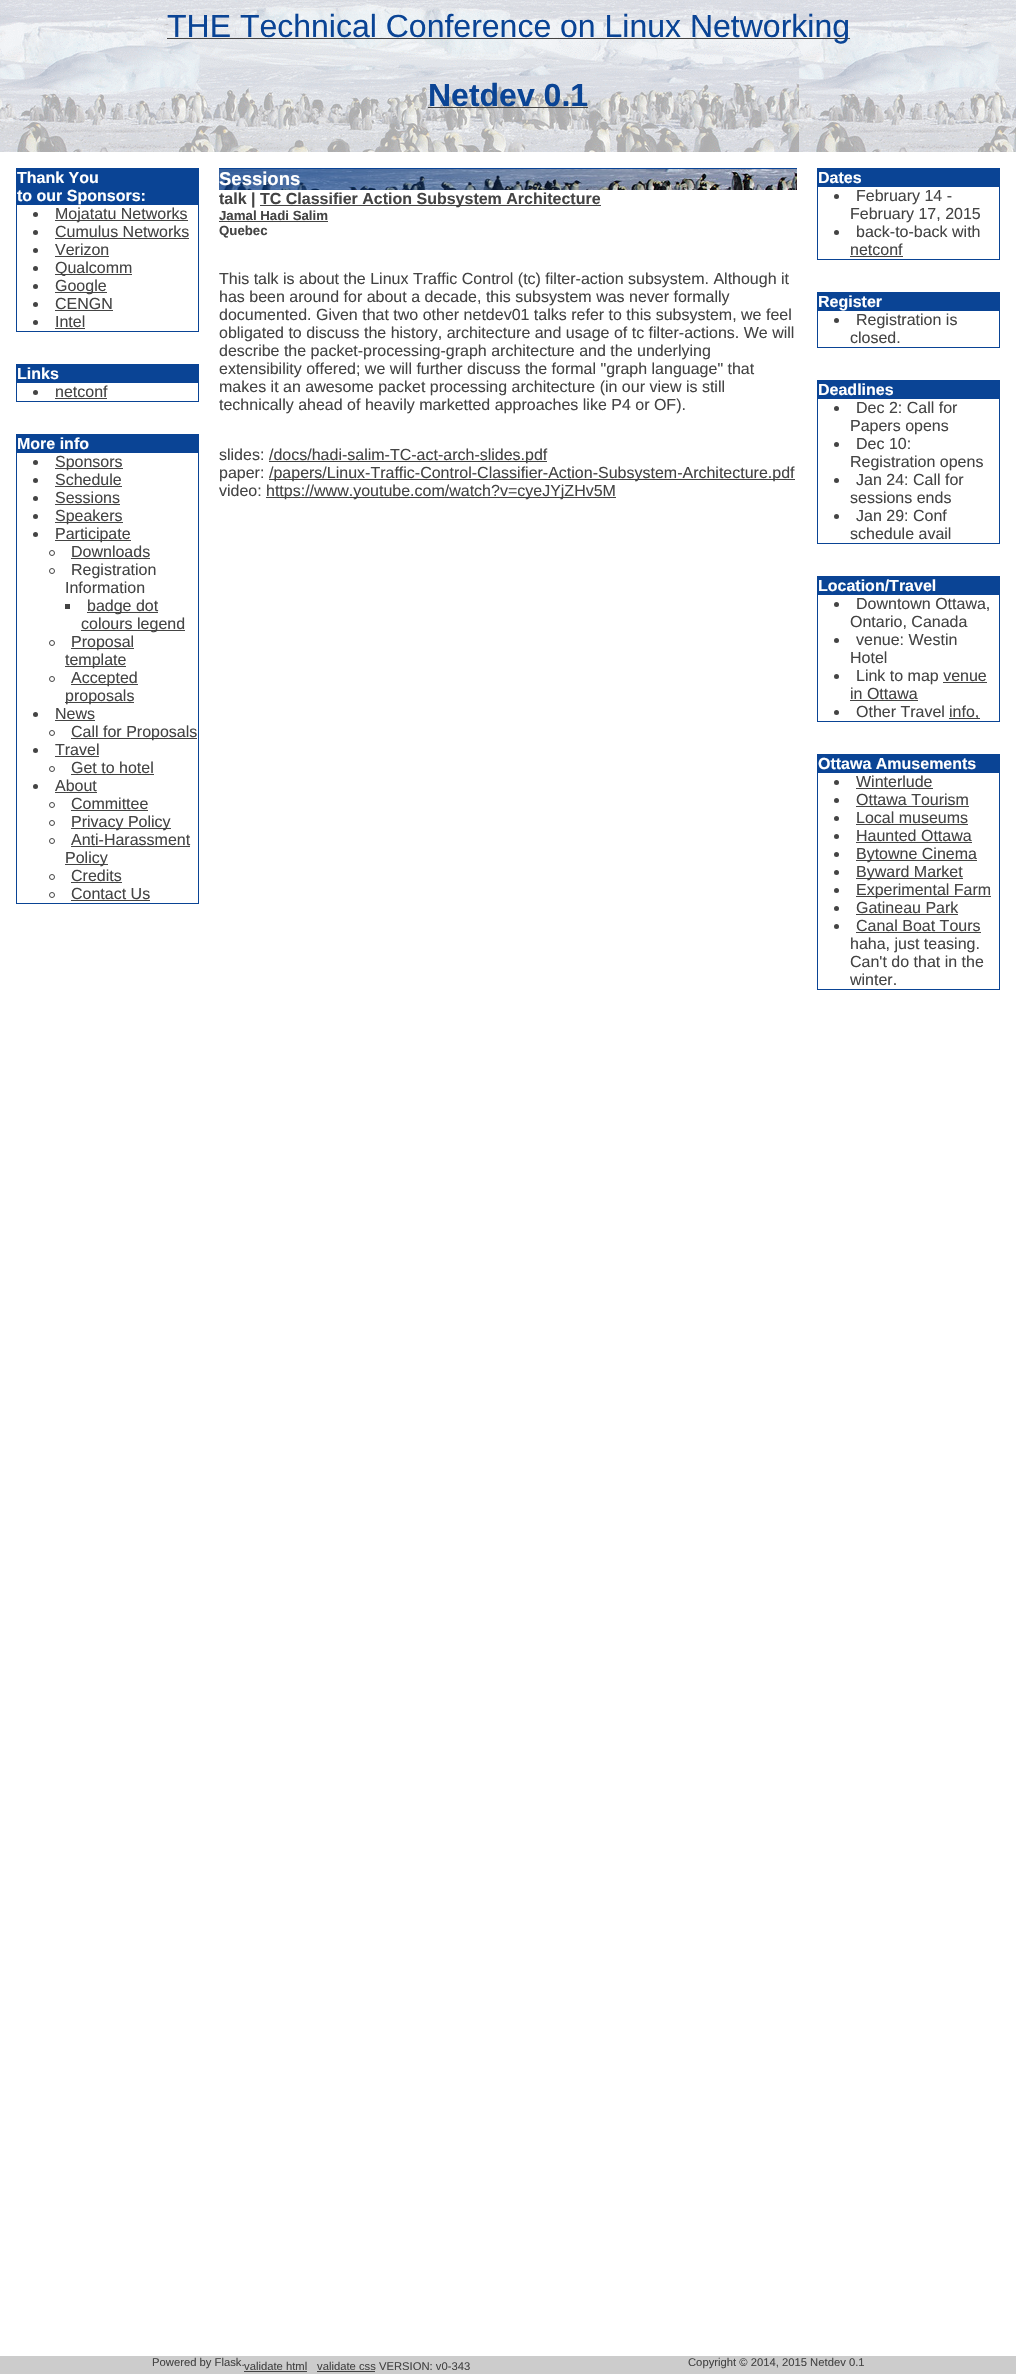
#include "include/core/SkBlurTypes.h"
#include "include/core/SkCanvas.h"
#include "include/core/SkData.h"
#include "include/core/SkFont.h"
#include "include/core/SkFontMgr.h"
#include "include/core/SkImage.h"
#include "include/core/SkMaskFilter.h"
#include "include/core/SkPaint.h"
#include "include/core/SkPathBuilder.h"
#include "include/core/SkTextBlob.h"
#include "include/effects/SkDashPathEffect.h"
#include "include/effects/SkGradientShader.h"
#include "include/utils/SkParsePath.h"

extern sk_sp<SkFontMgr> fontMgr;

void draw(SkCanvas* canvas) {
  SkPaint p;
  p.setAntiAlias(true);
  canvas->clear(SK_ColorWHITE);
  canvas->drawImageRect(SkImages::DeferredFromEncodedData(SkData::MakeFromFileName("images/1.png")), SkRect::MakeLTRB(0, 0, 1016, 152), SkSamplingOptions());
  p.setColor(SkColorSetRGB(68, 68, 68));
  canvas->drawRect(SkRect::MakeLTRB(167, 38, 850, 39), p);
  canvas->drawRect(SkRect::MakeLTRB(428, 107, 588, 108), p);
  p.setStyle(SkPaint::kStroke_Style);
  p.setStrokeWidth(1);
  p.setColor(SkColorSetRGB(10, 68, 149));
  canvas->drawRect(SkRect::MakeLTRB(16.5f, 168.5f, 198.5f, 331.5f), p);
  p.setStyle(SkPaint::kFill_Style);
  canvas->drawRect(SkRect::MakeLTRB(17, 169, 198, 205), p);
  p.setColor(SkColorSetRGB(68, 68, 68));
  canvas->drawCircle(35.5f, 214.5f, 2.5f, p);
  canvas->drawRect(SkRect::MakeLTRB(55, 220, 188, 221), p);
  canvas->drawCircle(35.5f, 232.5f, 2.5f, p);
  canvas->drawRect(SkRect::MakeLTRB(55, 238, 189, 239), p);
  canvas->drawCircle(35.5f, 250.5f, 2.5f, p);
  canvas->drawRect(SkRect::MakeLTRB(55, 256, 109, 257), p);
  canvas->drawCircle(35.5f, 268.5f, 2.5f, p);
  canvas->drawRect(SkRect::MakeLTRB(55, 274, 132, 275), p);
  canvas->drawCircle(35.5f, 286.5f, 2.5f, p);
  canvas->drawRect(SkRect::MakeLTRB(55, 292, 107, 293), p);
  canvas->drawCircle(35.5f, 304.5f, 2.5f, p);
  canvas->drawRect(SkRect::MakeLTRB(55, 310, 113, 311), p);
  canvas->drawCircle(35.5f, 322.5f, 2.5f, p);
  canvas->drawRect(SkRect::MakeLTRB(55, 328, 85, 329), p);
  p.setStyle(SkPaint::kStroke_Style);
  p.setColor(SkColorSetRGB(10, 68, 149));
  canvas->drawRect(SkRect::MakeLTRB(16.5f, 364.5f, 198.5f, 401.5f), p);
  p.setStyle(SkPaint::kFill_Style);
  canvas->drawRect(SkRect::MakeLTRB(17, 365, 198, 383), p);
  p.setColor(SkColorSetRGB(68, 68, 68));
  canvas->drawCircle(35.5f, 392.5f, 2.5f, p);
  canvas->drawRect(SkRect::MakeLTRB(55, 398, 107, 399), p);
  p.setStyle(SkPaint::kStroke_Style);
  p.setColor(SkColorSetRGB(10, 68, 149));
  canvas->drawRect(SkRect::MakeLTRB(16.5f, 434.5f, 198.5f, 903.5f), p);
  p.setStyle(SkPaint::kFill_Style);
  canvas->drawRect(SkRect::MakeLTRB(17, 435, 198, 453), p);
  p.setColor(SkColorSetRGB(68, 68, 68));
  canvas->drawCircle(35.5f, 462.5f, 2.5f, p);
  canvas->drawRect(SkRect::MakeLTRB(55, 468, 123, 469), p);
  canvas->drawCircle(35.5f, 480.5f, 2.5f, p);
  canvas->drawRect(SkRect::MakeLTRB(55, 486, 122, 487), p);
  canvas->drawCircle(35.5f, 498.5f, 2.5f, p);
  canvas->drawRect(SkRect::MakeLTRB(55, 504, 120, 505), p);
  canvas->drawCircle(35.5f, 516.5f, 2.5f, p);
  canvas->drawRect(SkRect::MakeLTRB(55, 522, 123, 523), p);
  canvas->drawCircle(35.5f, 534.5f, 2.5f, p);
  canvas->drawRect(SkRect::MakeLTRB(55, 540, 131, 541), p);
  p.setStyle(SkPaint::kStroke_Style);
  canvas->drawCircle(52, 553, 2.5f, p);
  p.setStyle(SkPaint::kFill_Style);
  canvas->drawRect(SkRect::MakeLTRB(71, 558, 150, 559), p);
  p.setStyle(SkPaint::kStroke_Style);
  canvas->drawCircle(52, 571, 2.5f, p);
  p.setStyle(SkPaint::kFill_Style);
  canvas->drawRect(SkRect::MakeLTRB(65, 604, 70, 609), p);
  canvas->drawRect(SkRect::MakeLTRB(87, 612, 158, 613), p);
  canvas->drawRect(SkRect::MakeLTRB(81, 630, 185, 631), p);
  p.setStyle(SkPaint::kStroke_Style);
  canvas->drawCircle(52, 643, 2.5f, p);
  p.setStyle(SkPaint::kFill_Style);
  canvas->drawRect(SkRect::MakeLTRB(71, 648, 134, 649), p);
  canvas->drawRect(SkRect::MakeLTRB(65, 666, 126, 667), p);
  p.setStyle(SkPaint::kStroke_Style);
  canvas->drawCircle(52, 679, 2.5f, p);
  p.setStyle(SkPaint::kFill_Style);
  canvas->drawRect(SkRect::MakeLTRB(71, 684, 138, 685), p);
  canvas->drawRect(SkRect::MakeLTRB(65, 702, 134, 703), p);
  canvas->drawCircle(35.5f, 714.5f, 2.5f, p);
  canvas->drawRect(SkRect::MakeLTRB(55, 720, 95, 721), p);
  p.setStyle(SkPaint::kStroke_Style);
  canvas->drawCircle(52, 733, 2.5f, p);
  p.setStyle(SkPaint::kFill_Style);
  canvas->drawRect(SkRect::MakeLTRB(71, 738, 197, 739), p);
  canvas->drawCircle(35.5f, 750.5f, 2.5f, p);
  canvas->drawRect(SkRect::MakeLTRB(55, 756, 99, 757), p);
  p.setStyle(SkPaint::kStroke_Style);
  canvas->drawCircle(52, 769, 2.5f, p);
  p.setStyle(SkPaint::kFill_Style);
  canvas->drawRect(SkRect::MakeLTRB(71, 774, 154, 775), p);
  canvas->drawCircle(35.5f, 786.5f, 2.5f, p);
  canvas->drawRect(SkRect::MakeLTRB(55, 792, 97, 793), p);
  p.setStyle(SkPaint::kStroke_Style);
  canvas->drawCircle(52, 805, 2.5f, p);
  p.setStyle(SkPaint::kFill_Style);
  canvas->drawRect(SkRect::MakeLTRB(71, 810, 148, 811), p);
  p.setStyle(SkPaint::kStroke_Style);
  canvas->drawCircle(52, 823, 2.5f, p);
  p.setStyle(SkPaint::kFill_Style);
  canvas->drawRect(SkRect::MakeLTRB(71, 828, 171, 829), p);
  p.setStyle(SkPaint::kStroke_Style);
  canvas->drawCircle(52, 841, 2.5f, p);
  p.setStyle(SkPaint::kFill_Style);
  canvas->drawRect(SkRect::MakeLTRB(71, 846, 190, 847), p);
  canvas->drawRect(SkRect::MakeLTRB(65, 864, 108, 865), p);
  p.setStyle(SkPaint::kStroke_Style);
  canvas->drawCircle(52, 877, 2.5f, p);
  p.setStyle(SkPaint::kFill_Style);
  canvas->drawRect(SkRect::MakeLTRB(71, 882, 122, 883), p);
  p.setStyle(SkPaint::kStroke_Style);
  canvas->drawCircle(52, 895, 2.5f, p);
  p.setStyle(SkPaint::kFill_Style);
  canvas->drawRect(SkRect::MakeLTRB(71, 900, 150, 901), p);
  p.setColor(SkColorSetRGB(10, 68, 149));
  canvas->drawRect(SkRect::MakeLTRB(219, 168, 797, 169), p);
  canvas->drawImageRect(SkImages::DeferredFromEncodedData(SkData::MakeFromFileName("images/2.png")), SkRect::MakeLTRB(219, 169, 797, 190), SkSamplingOptions());
  p.setColor(SkColorSetRGB(68, 68, 68));
  canvas->drawRect(SkRect::MakeLTRB(260, 205, 601, 206), p);
  canvas->drawRect(SkRect::MakeLTRB(219, 221, 328, 222), p);
  canvas->drawRect(SkRect::MakeLTRB(269, 461, 547, 462), p);
  canvas->drawRect(SkRect::MakeLTRB(269, 479, 795, 480), p);
  canvas->drawRect(SkRect::MakeLTRB(266, 497, 616, 498), p);
  p.setStyle(SkPaint::kStroke_Style);
  p.setColor(SkColorSetRGB(10, 68, 149));
  canvas->drawRect(SkRect::MakeLTRB(817.5f, 168.5f, 999.5f, 259.5f), p);
  p.setStyle(SkPaint::kFill_Style);
  canvas->drawRect(SkRect::MakeLTRB(818, 169, 999, 187), p);
  p.setColor(SkColorSetRGB(68, 68, 68));
  canvas->drawCircle(836.5f, 196.5f, 2.5f, p);
  canvas->drawCircle(836.5f, 232.5f, 2.5f, p);
  canvas->drawRect(SkRect::MakeLTRB(850, 256, 903, 257), p);
  p.setStyle(SkPaint::kStroke_Style);
  p.setColor(SkColorSetRGB(10, 68, 149));
  canvas->drawRect(SkRect::MakeLTRB(817.5f, 292.5f, 999.5f, 347.5f), p);
  p.setStyle(SkPaint::kFill_Style);
  canvas->drawRect(SkRect::MakeLTRB(818, 293, 999, 311), p);
  p.setColor(SkColorSetRGB(68, 68, 68));
  canvas->drawCircle(836.5f, 320.5f, 2.5f, p);
  p.setStyle(SkPaint::kStroke_Style);
  p.setColor(SkColorSetRGB(10, 68, 149));
  canvas->drawRect(SkRect::MakeLTRB(817.5f, 380.5f, 999.5f, 543.5f), p);
  p.setStyle(SkPaint::kFill_Style);
  canvas->drawRect(SkRect::MakeLTRB(818, 381, 999, 399), p);
  p.setColor(SkColorSetRGB(68, 68, 68));
  canvas->drawCircle(836.5f, 408.5f, 2.5f, p);
  canvas->drawCircle(836.5f, 444.5f, 2.5f, p);
  canvas->drawCircle(836.5f, 480.5f, 2.5f, p);
  canvas->drawCircle(836.5f, 516.5f, 2.5f, p);
  p.setStyle(SkPaint::kStroke_Style);
  p.setColor(SkColorSetRGB(10, 68, 149));
  canvas->drawRect(SkRect::MakeLTRB(817.5f, 576.5f, 999.5f, 721.5f), p);
  p.setStyle(SkPaint::kFill_Style);
  canvas->drawRect(SkRect::MakeLTRB(818, 577, 999, 595), p);
  p.setColor(SkColorSetRGB(68, 68, 68));
  canvas->drawCircle(836.5f, 604.5f, 2.5f, p);
  canvas->drawCircle(836.5f, 640.5f, 2.5f, p);
  canvas->drawCircle(836.5f, 676.5f, 2.5f, p);
  canvas->drawRect(SkRect::MakeLTRB(943, 682, 987, 683), p);
  canvas->drawRect(SkRect::MakeLTRB(850, 700, 918, 701), p);
  canvas->drawCircle(836.5f, 712.5f, 2.5f, p);
  canvas->drawRect(SkRect::MakeLTRB(949, 718, 980, 719), p);
  p.setStyle(SkPaint::kStroke_Style);
  p.setColor(SkColorSetRGB(10, 68, 149));
  canvas->drawRect(SkRect::MakeLTRB(817.5f, 754.5f, 999.5f, 989.5f), p);
  p.setStyle(SkPaint::kFill_Style);
  canvas->drawRect(SkRect::MakeLTRB(818, 755, 999, 773), p);
  p.setColor(SkColorSetRGB(68, 68, 68));
  canvas->drawCircle(836.5f, 782.5f, 2.5f, p);
  canvas->drawRect(SkRect::MakeLTRB(856, 788, 933, 789), p);
  canvas->drawCircle(836.5f, 800.5f, 2.5f, p);
  canvas->drawRect(SkRect::MakeLTRB(856, 806, 969, 807), p);
  canvas->drawCircle(836.5f, 818.5f, 2.5f, p);
  canvas->drawRect(SkRect::MakeLTRB(856, 824, 968, 825), p);
  canvas->drawCircle(836.5f, 836.5f, 2.5f, p);
  canvas->drawRect(SkRect::MakeLTRB(856, 842, 972, 843), p);
  canvas->drawCircle(836.5f, 854.5f, 2.5f, p);
  canvas->drawRect(SkRect::MakeLTRB(856, 860, 977, 861), p);
  canvas->drawCircle(836.5f, 872.5f, 2.5f, p);
  canvas->drawRect(SkRect::MakeLTRB(856, 878, 963, 879), p);
  canvas->drawCircle(836.5f, 890.5f, 2.5f, p);
  canvas->drawRect(SkRect::MakeLTRB(856, 896, 991, 897), p);
  canvas->drawCircle(836.5f, 908.5f, 2.5f, p);
  canvas->drawRect(SkRect::MakeLTRB(856, 914, 958, 915), p);
  canvas->drawCircle(836.5f, 926.5f, 2.5f, p);
  canvas->drawRect(SkRect::MakeLTRB(856, 932, 981, 933), p);
  p.setColor(SkColorSetRGB(204, 204, 204));
  canvas->drawRect(SkRect::MakeLTRB(0, 2356, 1016, 2374), p);
  p.setColor(SkColorSetRGB(68, 68, 68));
  canvas->drawRect(SkRect::MakeLTRB(244, 2371, 307, 2372), p);
  canvas->drawRect(SkRect::MakeLTRB(317, 2371, 375, 2372), p);
  SkFont font1(fontMgr->matchFamilyStyle("Liberation Sans", SkFontStyle::Normal()), 32);
  font1.setSubpixel(true);
  p.setColor(SkColorSetRGB(10, 68, 149));
  canvas->drawString("THE Technical Conference on Linux Networking", 167, 37, font1, p);
  SkFont font2(fontMgr->matchFamilyStyle("Liberation Sans", SkFontStyle::Bold()), 32);
  font2.setSubpixel(true);
  canvas->drawString("Netdev 0.1", 428, 106, font2, p);
  SkFont font3(fontMgr->matchFamilyStyle("Liberation Sans", SkFontStyle::Bold()), 16);
  font3.setSubpixel(true);
  p.setColor(SK_ColorWHITE);
  canvas->drawString("Thank You", 17, 183, font3, p);
  canvas->drawString("to our Sponsors:", 17, 201, font3, p);
  SkFont font4(fontMgr->matchFamilyStyle("Liberation Sans", SkFontStyle::Normal()), 16);
  font4.setSubpixel(true);
  p.setColor(SkColorSetRGB(68, 68, 68));
  canvas->drawString("Mojatatu Networks", 55, 219, font4, p);
  canvas->drawString("Cumulus Networks", 55, 237, font4, p);
  canvas->drawString("Verizon", 55, 255, font4, p);
  canvas->drawString("Qualcomm", 55, 273, font4, p);
  canvas->drawString("Google", 55, 291, font4, p);
  canvas->drawString("CENGN", 55, 309, font4, p);
  canvas->drawString("Intel", 55, 327, font4, p);
  p.setColor(SK_ColorWHITE);
  canvas->drawString("Links", 17, 379, font3, p);
  p.setColor(SkColorSetRGB(68, 68, 68));
  canvas->drawString("netconf", 55, 397, font4, p);
  p.setColor(SK_ColorWHITE);
  canvas->drawString("More info", 17, 449, font3, p);
  p.setColor(SkColorSetRGB(68, 68, 68));
  canvas->drawString("Sponsors", 55, 467, font4, p);
  canvas->drawString("Schedule", 55, 485, font4, p);
  canvas->drawString("Sessions", 55, 503, font4, p);
  canvas->drawString("Speakers", 55, 521, font4, p);
  canvas->drawString("Participate", 55, 539, font4, p);
  canvas->drawString("Downloads", 71, 557, font4, p);
  canvas->drawString("Registration", 71, 575, font4, p);
  canvas->drawString("Information", 65, 593, font4, p);
  canvas->drawString("badge dot", 87, 611, font4, p);
  canvas->drawString("colours legend", 81, 629, font4, p);
  canvas->drawString("Proposal", 71, 647, font4, p);
  canvas->drawString("template", 65, 665, font4, p);
  canvas->drawString("Accepted", 71, 683, font4, p);
  canvas->drawString("proposals", 65, 701, font4, p);
  canvas->drawString("News", 55, 719, font4, p);
  canvas->drawString("Call for Proposals", 71, 737, font4, p);
  canvas->drawString("Travel", 55, 755, font4, p);
  canvas->drawString("Get to hotel", 71, 773, font4, p);
  canvas->drawString("About", 55, 791, font4, p);
  canvas->drawString("Committee", 71, 809, font4, p);
  canvas->drawString("Privacy Policy", 71, 827, font4, p);
  canvas->drawString("Anti-Harassment", 71, 845, font4, p);
  canvas->drawString("Policy", 65, 863, font4, p);
  canvas->drawString("Credits", 71, 881, font4, p);
  canvas->drawString("Contact Us", 71, 899, font4, p);
  SkFont font5(fontMgr->matchFamilyStyle("Liberation Sans", SkFontStyle::Bold()), 18.5f);
  font5.setSubpixel(true);
  p.setColor(SK_ColorWHITE);
  canvas->drawString("Sessions", 219, 185, font5, p);
  p.setColor(SkColorSetRGB(68, 68, 68));
  canvas->drawString("talk |", 219, 204, font3, p);
  canvas->drawString("TC Classifier Action Subsystem Architecture", 260, 204, font3, p);
  SkFont font6(fontMgr->matchFamilyStyle("Liberation Sans", SkFontStyle::Bold()), 13.25f);
  font6.setSubpixel(true);
  canvas->drawString("Jamal Hadi Salim", 219, 220, font6, p);
  canvas->drawString("Quebec", 219, 235, font6, p);
  canvas->drawString("This talk is about the Linux Traffic Control (tc) filter-action subsystem. Although it", 219, 284, font4, p);
  canvas->drawString("has been around for about a decade, this subsystem was never formally", 219, 302, font4, p);
  canvas->drawString("documented. Given that two other netdev01 talks refer to this subsystem, we feel", 219, 320, font4, p);
  canvas->drawString("obligated to discuss the history, architecture and usage of tc filter-actions. We will", 219, 338, font4, p);
  canvas->drawString("describe the packet-processing-graph architecture and the underlying", 219, 356, font4, p);
  canvas->drawString("extensibility offered; we will further discuss the formal \"graph language\" that", 219, 374, font4, p);
  canvas->drawString("makes it an awesome packet processing architecture (in our view is still", 219, 392, font4, p);
  canvas->drawString("technically ahead of heavily marketted approaches like P4 or OF).", 219, 410, font4, p);
  canvas->drawString("slides:", 219, 460, font4, p);
  canvas->drawString("/docs/hadi-salim-TC-act-arch-slides.pdf", 269, 460, font4, p);
  canvas->drawString("paper:", 219, 478, font4, p);
  canvas->drawString("/papers/Linux-Traffic-Control-Classifier-Action-Subsystem-Architecture.pdf", 269, 478, font4, p);
  canvas->drawString("video:", 219, 496, font4, p);
  canvas->drawString("https://www.youtube.com/watch?v=cyeJYjZHv5M", 266, 496, font4, p);
  p.setColor(SK_ColorWHITE);
  canvas->drawString("Dates", 818, 183, font3, p);
  p.setColor(SkColorSetRGB(68, 68, 68));
  canvas->drawString("February 14 -", 856, 201, font4, p);
  canvas->drawString("February 17, 2015", 850, 219, font4, p);
  canvas->drawString("back-to-back with", 856, 237, font4, p);
  canvas->drawString("netconf", 850, 255, font4, p);
  p.setColor(SK_ColorWHITE);
  canvas->drawString("Register", 818, 307, font3, p);
  p.setColor(SkColorSetRGB(68, 68, 68));
  canvas->drawString("Registration is", 856, 325, font4, p);
  canvas->drawString("closed.", 850, 343, font4, p);
  p.setColor(SK_ColorWHITE);
  canvas->drawString("Deadlines", 818, 395, font3, p);
  p.setColor(SkColorSetRGB(68, 68, 68));
  canvas->drawString("Dec 2: Call for", 856, 413, font4, p);
  canvas->drawString("Papers opens", 850, 431, font4, p);
  canvas->drawString("Dec 10:", 856, 449, font4, p);
  canvas->drawString("Registration opens", 850, 467, font4, p);
  canvas->drawString("Jan 24: Call for", 856, 485, font4, p);
  canvas->drawString("sessions ends", 850, 503, font4, p);
  canvas->drawString("Jan 29: Conf", 856, 521, font4, p);
  canvas->drawString("schedule avail", 850, 539, font4, p);
  p.setColor(SK_ColorWHITE);
  canvas->drawString("Location/Travel", 818, 591, font3, p);
  p.setColor(SkColorSetRGB(68, 68, 68));
  canvas->drawString("Downtown Ottawa,", 856, 609, font4, p);
  canvas->drawString("Ontario, Canada", 850, 627, font4, p);
  canvas->drawString("venue: Westin", 856, 645, font4, p);
  canvas->drawString("Hotel", 850, 663, font4, p);
  canvas->drawString("Link to map venue", 856, 681, font4, p);
  canvas->drawString("in Ottawa", 850, 699, font4, p);
  canvas->drawString("Other Travel", 856, 717, font4, p);
  canvas->drawString("info,", 949, 717, font4, p);
  p.setColor(SK_ColorWHITE);
  canvas->drawString("Ottawa Amusements", 818, 769, font3, p);
  p.setColor(SkColorSetRGB(68, 68, 68));
  canvas->drawString("Winterlude", 856, 787, font4, p);
  canvas->drawString("Ottawa Tourism", 856, 805, font4, p);
  canvas->drawString("Local museums", 856, 823, font4, p);
  canvas->drawString("Haunted Ottawa", 856, 841, font4, p);
  canvas->drawString("Bytowne Cinema", 856, 859, font4, p);
  canvas->drawString("Byward Market", 856, 877, font4, p);
  canvas->drawString("Experimental Farm", 856, 895, font4, p);
  canvas->drawString("Gatineau Park", 856, 913, font4, p);
  canvas->drawString("Canal Boat Tours", 856, 931, font4, p);
  canvas->drawString("haha, just teasing.", 850, 949, font4, p);
  canvas->drawString("Can't do that in the", 850, 967, font4, p);
  canvas->drawString("winter.", 850, 985, font4, p);
  SkFont font7(fontMgr->matchFamilyStyle("Liberation Sans", SkFontStyle::Normal()), 11.25f);
  font7.setSubpixel(true);
  canvas->drawString("Powered by Flask.", 152, 2366, font7, p);
  canvas->drawString("validate html", 244, 2370, font7, p);
  canvas->drawString("validate css VERSION: v0-343", 317, 2370, font7, p);
  canvas->drawString("Copyright © 2014, 2015 Netdev 0.1", 688, 2366, font7, p);
}
